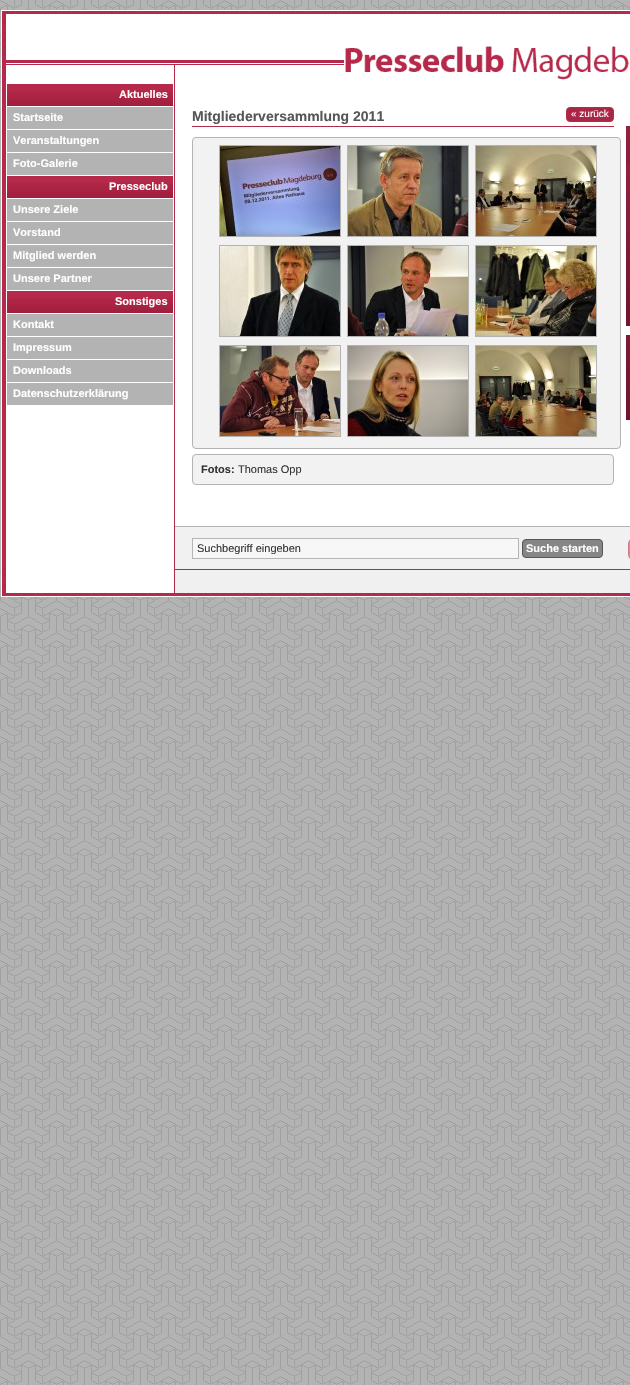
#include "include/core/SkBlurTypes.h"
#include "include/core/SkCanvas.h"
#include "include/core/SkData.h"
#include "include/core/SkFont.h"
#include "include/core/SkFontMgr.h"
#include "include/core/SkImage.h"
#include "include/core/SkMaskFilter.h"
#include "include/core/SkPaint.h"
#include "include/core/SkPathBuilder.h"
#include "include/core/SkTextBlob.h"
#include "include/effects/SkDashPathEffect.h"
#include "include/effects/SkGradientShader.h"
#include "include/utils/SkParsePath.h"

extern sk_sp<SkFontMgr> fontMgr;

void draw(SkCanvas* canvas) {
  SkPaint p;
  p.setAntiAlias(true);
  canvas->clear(SK_ColorWHITE);
  canvas->drawImageRect(SkImages::DeferredFromEncodedData(SkData::MakeFromFileName("images/1.png")), SkRect::MakeLTRB(0, 0, 630, 1385), SkSamplingOptions());
  canvas->drawImageRect(SkImages::DeferredFromEncodedData(SkData::MakeFromFileName("images/2.png")), SkRect::MakeLTRB(0, 10, 630, 84), SkSamplingOptions());
  p.setColor(SK_ColorWHITE);
  canvas->drawRect(SkRect::MakeLTRB(175, 84, 630, 526), p);
  canvas->drawImageRect(SkImages::DeferredFromEncodedData(SkData::MakeFromFileName("images/3.png")), SkRect::MakeLTRB(0, 84, 175, 526), SkSamplingOptions());
  p.setColor(SkColorSetRGB(181, 41, 74));
  canvas->drawRect(SkRect::MakeLTRB(7, 84, 173, 91), p);
  canvas->drawImageRect(SkImages::DeferredFromEncodedData(SkData::MakeFromFileName("images/4.png")), SkRect::MakeLTRB(7, 91, 173, 106), SkSamplingOptions());
  p.setColor(SkColorSetRGB(179, 179, 179));
  canvas->drawRect(SkRect::MakeLTRB(7, 107, 173, 129), p);
  canvas->drawRect(SkRect::MakeLTRB(7, 130, 173, 152), p);
  canvas->drawRect(SkRect::MakeLTRB(7, 153, 173, 175), p);
  p.setColor(SkColorSetRGB(181, 41, 74));
  canvas->drawRect(SkRect::MakeLTRB(7, 176, 173, 183), p);
  canvas->drawImageRect(SkImages::DeferredFromEncodedData(SkData::MakeFromFileName("images/4.png")), SkRect::MakeLTRB(7, 183, 173, 198), SkSamplingOptions());
  p.setColor(SkColorSetRGB(179, 179, 179));
  canvas->drawRect(SkRect::MakeLTRB(7, 199, 173, 221), p);
  canvas->drawRect(SkRect::MakeLTRB(7, 222, 173, 244), p);
  canvas->drawRect(SkRect::MakeLTRB(7, 245, 173, 267), p);
  canvas->drawRect(SkRect::MakeLTRB(7, 268, 173, 290), p);
  p.setColor(SkColorSetRGB(181, 41, 74));
  canvas->drawRect(SkRect::MakeLTRB(7, 291, 173, 298), p);
  canvas->drawImageRect(SkImages::DeferredFromEncodedData(SkData::MakeFromFileName("images/4.png")), SkRect::MakeLTRB(7, 298, 173, 313), SkSamplingOptions());
  p.setColor(SkColorSetRGB(179, 179, 179));
  canvas->drawRect(SkRect::MakeLTRB(7, 314, 173, 336), p);
  canvas->drawRect(SkRect::MakeLTRB(7, 337, 173, 359), p);
  canvas->drawRect(SkRect::MakeLTRB(7, 360, 173, 382), p);
  canvas->drawRect(SkRect::MakeLTRB(7, 383, 173, 405), p);
  p.setColor(SkColorSetRGB(181, 41, 74));
  canvas->drawRect(SkRect::MakeLTRB(192, 126, 614, 127), p);
  p.setColor(SkColorSetRGB(169, 38, 69));
  canvas->drawRoundRect(SkRect::MakeLTRB(566.5f, 107.5f, 613.5f, 121.5f), 3.5f, 3.5f, p);
  p.setStyle(SkPaint::kStroke_Style);
  p.setStrokeWidth(1);
  p.setColor(SkColorSetRGB(181, 41, 74));
  canvas->drawRoundRect(SkRect::MakeLTRB(566.5f, 107.5f, 613.5f, 121.5f), 3.5f, 3.5f, p);
  p.setStyle(SkPaint::kFill_Style);
  p.setColor(SkColorSetRGB(242, 242, 242));
  canvas->drawRoundRect(SkRect::MakeLTRB(192.5f, 137.5f, 620.5f, 448.5f), 3.5f, 3.5f, p);
  p.setStyle(SkPaint::kStroke_Style);
  p.setColor(SkColorSetRGB(179, 179, 179));
  canvas->drawRoundRect(SkRect::MakeLTRB(192.5f, 137.5f, 620.5f, 448.5f), 3.5f, 3.5f, p);
  canvas->drawRect(SkRect::MakeLTRB(219.5f, 145.5f, 340.5f, 236.5f), p);
  canvas->drawImageRect(SkImages::DeferredFromEncodedData(SkData::MakeFromFileName("images/5.png")), SkRect::MakeLTRB(220, 146, 340, 236), SkSamplingOptions());
  canvas->drawRect(SkRect::MakeLTRB(347.5f, 145.5f, 468.5f, 236.5f), p);
  canvas->drawImageRect(SkImages::DeferredFromEncodedData(SkData::MakeFromFileName("images/6.png")), SkRect::MakeLTRB(348, 146, 468, 236), SkSamplingOptions());
  canvas->drawRect(SkRect::MakeLTRB(475.5f, 145.5f, 596.5f, 236.5f), p);
  canvas->drawImageRect(SkImages::DeferredFromEncodedData(SkData::MakeFromFileName("images/7.png")), SkRect::MakeLTRB(476, 146, 596, 236), SkSamplingOptions());
  canvas->drawRect(SkRect::MakeLTRB(219.5f, 245.5f, 340.5f, 336.5f), p);
  canvas->drawImageRect(SkImages::DeferredFromEncodedData(SkData::MakeFromFileName("images/8.png")), SkRect::MakeLTRB(220, 246, 340, 336), SkSamplingOptions());
  canvas->drawRect(SkRect::MakeLTRB(347.5f, 245.5f, 468.5f, 336.5f), p);
  canvas->drawImageRect(SkImages::DeferredFromEncodedData(SkData::MakeFromFileName("images/9.png")), SkRect::MakeLTRB(348, 246, 468, 336), SkSamplingOptions());
  canvas->drawRect(SkRect::MakeLTRB(475.5f, 245.5f, 596.5f, 336.5f), p);
  canvas->drawImageRect(SkImages::DeferredFromEncodedData(SkData::MakeFromFileName("images/10.png")), SkRect::MakeLTRB(476, 246, 596, 336), SkSamplingOptions());
  canvas->drawRect(SkRect::MakeLTRB(219.5f, 345.5f, 340.5f, 436.5f), p);
  canvas->drawImageRect(SkImages::DeferredFromEncodedData(SkData::MakeFromFileName("images/11.png")), SkRect::MakeLTRB(220, 346, 340, 436), SkSamplingOptions());
  canvas->drawRect(SkRect::MakeLTRB(347.5f, 345.5f, 468.5f, 436.5f), p);
  canvas->drawImageRect(SkImages::DeferredFromEncodedData(SkData::MakeFromFileName("images/12.png")), SkRect::MakeLTRB(348, 346, 468, 436), SkSamplingOptions());
  canvas->drawRect(SkRect::MakeLTRB(475.5f, 345.5f, 596.5f, 436.5f), p);
  canvas->drawImageRect(SkImages::DeferredFromEncodedData(SkData::MakeFromFileName("images/13.png")), SkRect::MakeLTRB(476, 346, 596, 436), SkSamplingOptions());
  p.setStyle(SkPaint::kFill_Style);
  p.setColor(SkColorSetRGB(242, 242, 242));
  canvas->drawRoundRect(SkRect::MakeLTRB(192.5f, 454.5f, 613.5f, 484.5f), 3.5f, 3.5f, p);
  p.setStyle(SkPaint::kStroke_Style);
  p.setColor(SkColorSetRGB(179, 179, 179));
  canvas->drawRoundRect(SkRect::MakeLTRB(192.5f, 454.5f, 613.5f, 484.5f), 3.5f, 3.5f, p);
  canvas->drawImageRect(SkImages::DeferredFromEncodedData(SkData::MakeFromFileName("images/14.png")), SkRect::MakeLTRB(626, 126, 630, 326), SkSamplingOptions());
  canvas->drawImageRect(SkImages::DeferredFromEncodedData(SkData::MakeFromFileName("images/15.png")), SkRect::MakeLTRB(626, 335, 630, 420), SkSamplingOptions());
  canvas->drawImageRect(SkImages::DeferredFromEncodedData(SkData::MakeFromFileName("images/16.png")), SkRect::MakeLTRB(0, 526, 175, 569), SkSamplingOptions());
  p.setStyle(SkPaint::kFill_Style);
  p.setColor(SkColorSetRGB(241, 241, 241));
  canvas->drawRect(SkRect::MakeLTRB(175, 527, 630, 569), p);
  p.setColor(SkColorSetRGB(179, 179, 179));
  canvas->drawRect(SkRect::MakeLTRB(175, 526, 630, 527), p);
  p.setColor(SkColorSetRGB(247, 247, 247));
  canvas->drawRect(SkRect::MakeLTRB(192.5f, 538.5f, 518.5f, 558.5f), p);
  p.setStyle(SkPaint::kStroke_Style);
  p.setColor(SkColorSetRGB(181, 181, 181));
  canvas->drawRect(SkRect::MakeLTRB(192.5f, 538.5f, 518.5f, 558.5f), p);
  p.setStyle(SkPaint::kFill_Style);
  p.setColor(SkColorSetRGB(134, 134, 134));
  canvas->drawRoundRect(SkRect::MakeLTRB(522.5f, 539.5f, 602.5f, 557.5f), 3.5f, 3.5f, p);
  p.setStyle(SkPaint::kStroke_Style);
  p.setColor(SkColorSetRGB(86, 86, 86));
  canvas->drawRoundRect(SkRect::MakeLTRB(522.5f, 539.5f, 602.5f, 557.5f), 3.5f, 3.5f, p);
  canvas->drawImageRect(SkImages::DeferredFromEncodedData(SkData::MakeFromFileName("images/17.png")), SkRect::MakeLTRB(628, 539, 630, 559), SkSamplingOptions());
  canvas->drawImageRect(SkImages::DeferredFromEncodedData(SkData::MakeFromFileName("images/18.png")), SkRect::MakeLTRB(0, 569, 630, 597), SkSamplingOptions());
  SkFont font1(fontMgr->matchFamilyStyle("Liberation Sans", SkFontStyle::Bold()), 11);
  font1.setSubpixel(true);
  p.setStyle(SkPaint::kFill_Style);
  p.setColor(SK_ColorWHITE);
  canvas->drawString("Aktuelles", 119, 98, font1, p);
  canvas->drawString("Startseite", 13, 121, font1, p);
  canvas->drawString("Veranstaltungen", 13, 144, font1, p);
  canvas->drawString("Foto-Galerie", 13, 167, font1, p);
  canvas->drawString("Presseclub", 109, 190, font1, p);
  canvas->drawString("Unsere Ziele", 13, 213, font1, p);
  canvas->drawString("Vorstand", 13, 236, font1, p);
  canvas->drawString("Mitglied werden", 13, 259, font1, p);
  canvas->drawString("Unsere Partner", 13, 282, font1, p);
  canvas->drawString("Sonstiges", 115, 305, font1, p);
  canvas->drawString("Kontakt", 13, 328, font1, p);
  canvas->drawString("Impressum", 13, 351, font1, p);
  canvas->drawString("Downloads", 13, 374, font1, p);
  canvas->drawString("Datenschutzerklärung", 13, 397, font1, p);
  SkFont font2(fontMgr->matchFamilyStyle("Liberation Sans", SkFontStyle::Bold()), 14);
  font2.setSubpixel(true);
  p.setColor(SkColorSetRGB(86, 86, 86));
  canvas->drawString("Mitgliederversammlung 2011", 192, 121, font2, p);
  SkFont font3(fontMgr->matchFamilyStyle("Liberation Sans", SkFontStyle::Normal()), 10);
  font3.setSubpixel(true);
  p.setColor(SK_ColorWHITE);
  canvas->drawString("« zurück", 571, 117, font3, p);
  p.setColor(SkColorSetRGB(51, 51, 51));
  canvas->drawString("Fotos:", 201, 473, font1, p);
  SkFont font4(fontMgr->matchFamilyStyle("Liberation Sans", SkFontStyle::Normal()), 11);
  font4.setSubpixel(true);
  canvas->drawString("Thomas Opp", 238, 473, font4, p);
  canvas->save();
  canvas->clipRect(SkRect::MakeLTRB(197, 542, 514, 554));
  canvas->drawString("Suchbegriff eingeben", 197, 552, font4, p);
  canvas->restore();
  p.setColor(SK_ColorWHITE);
  canvas->drawString("Suche starten", 526, 552, font1, p);
}
